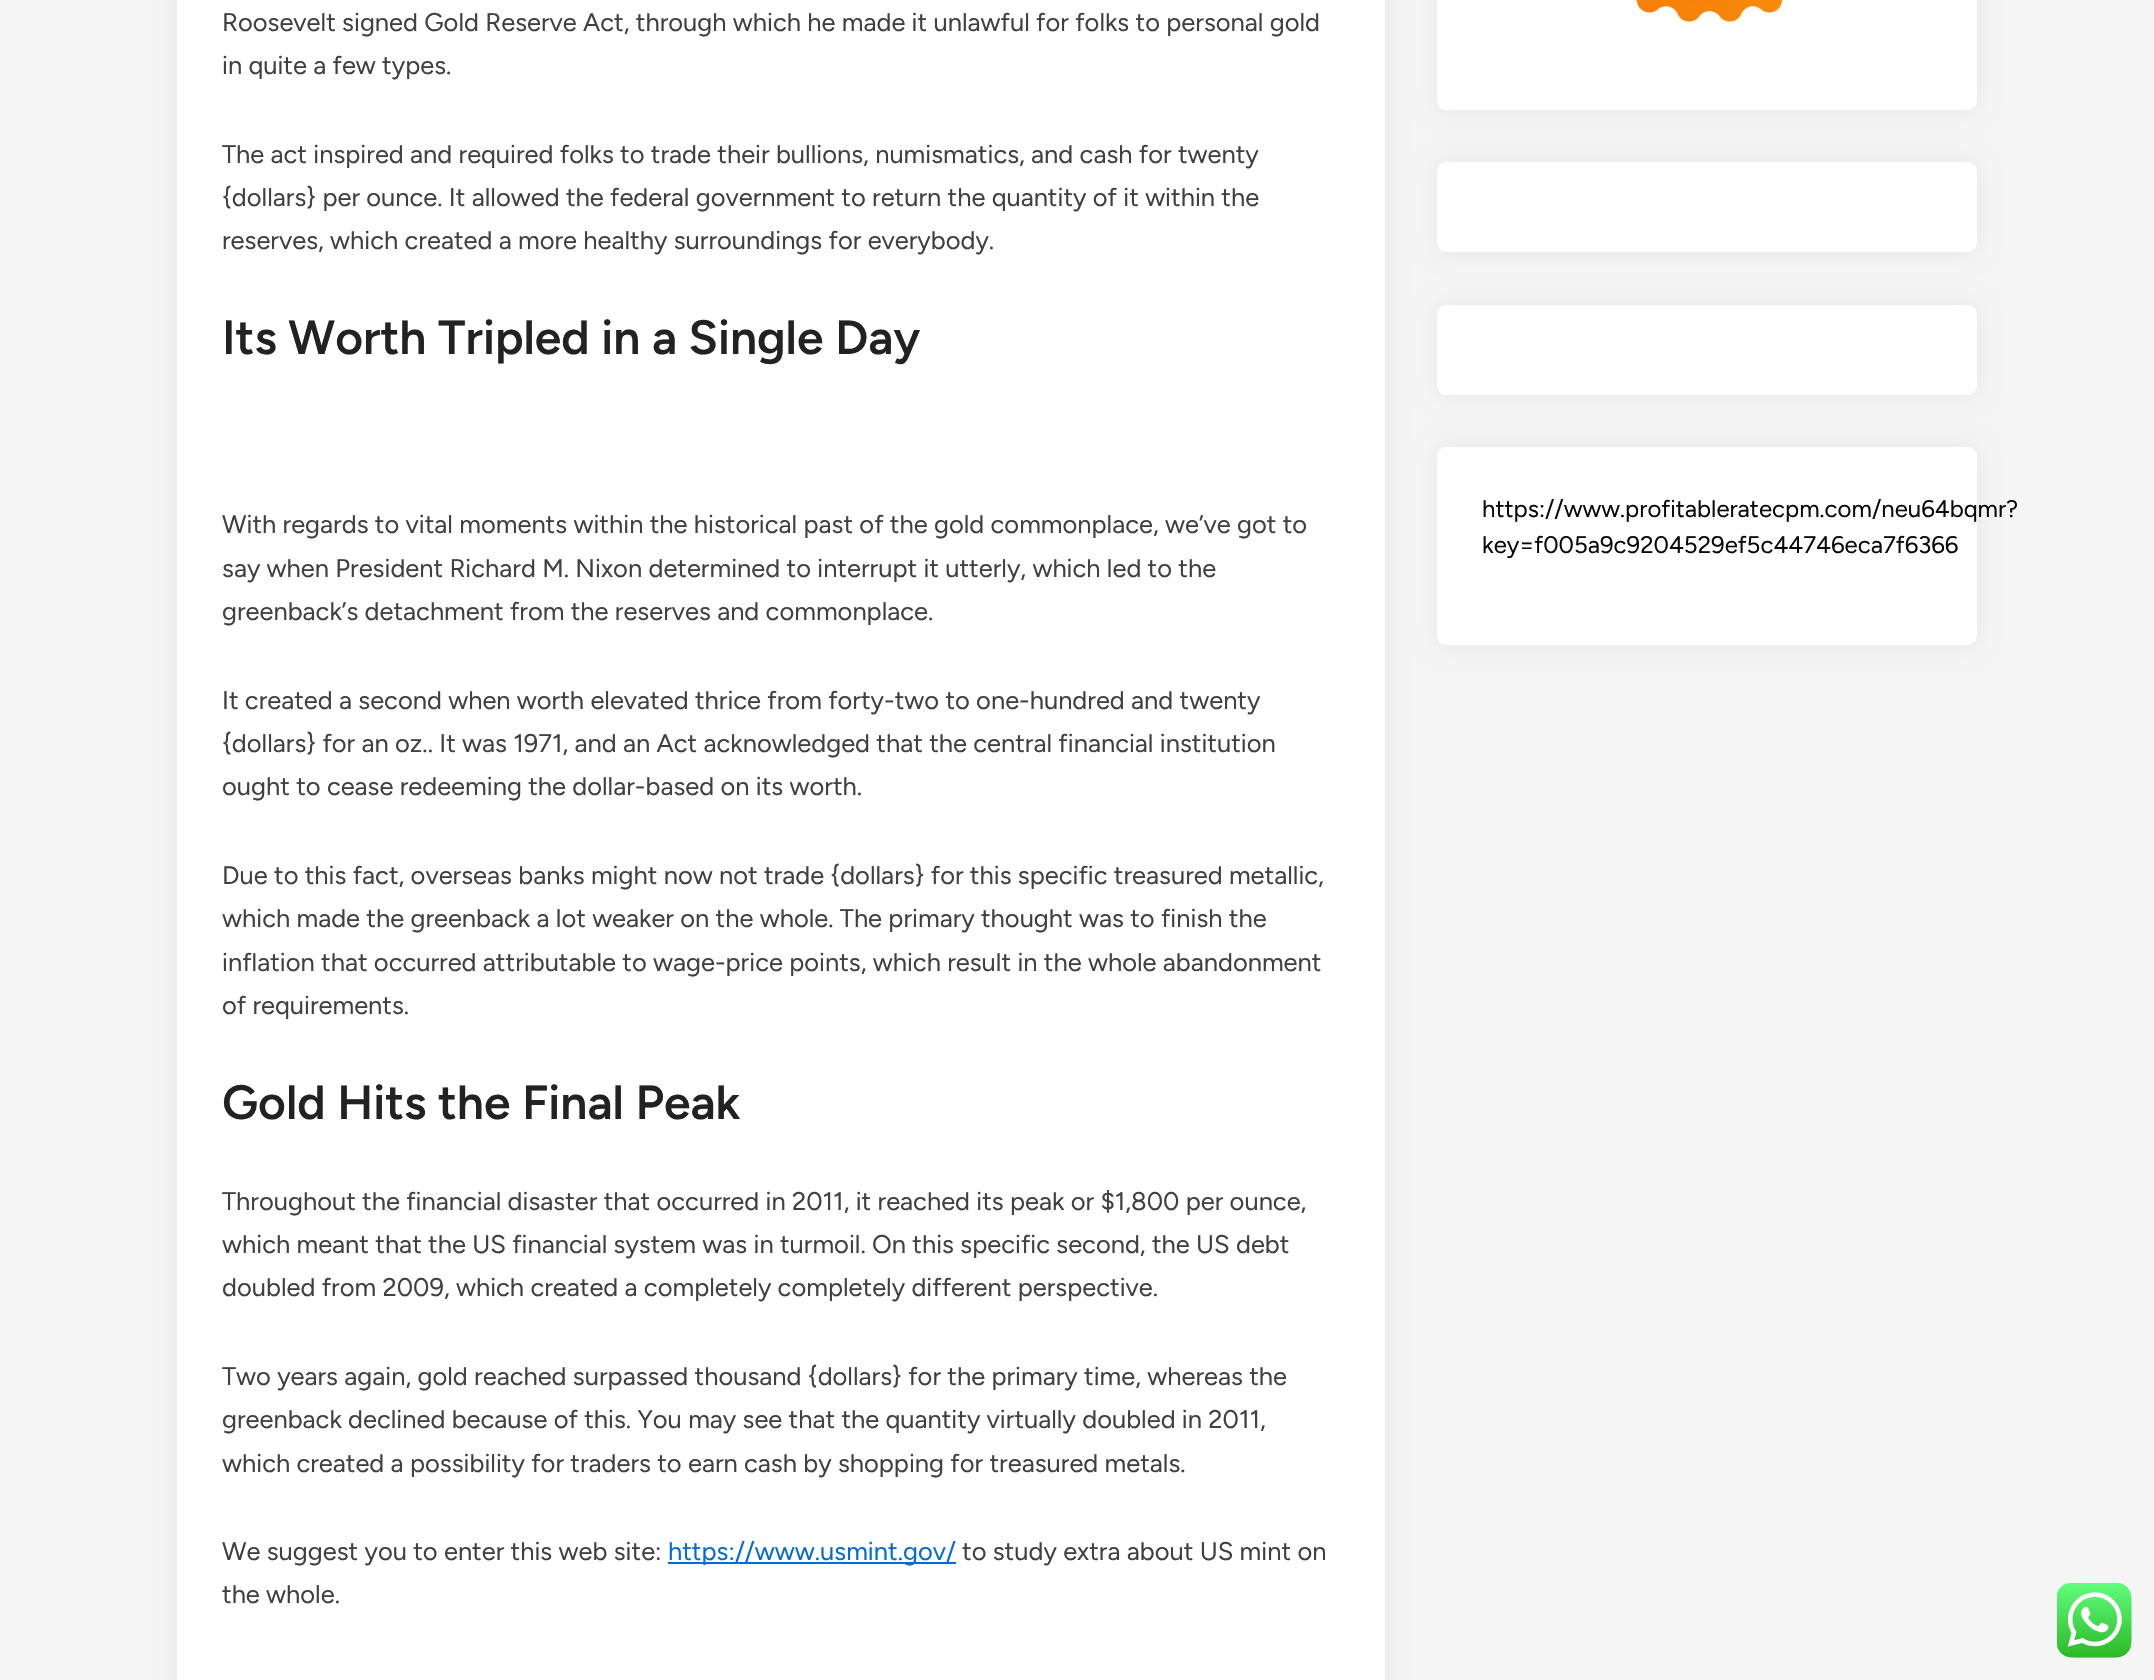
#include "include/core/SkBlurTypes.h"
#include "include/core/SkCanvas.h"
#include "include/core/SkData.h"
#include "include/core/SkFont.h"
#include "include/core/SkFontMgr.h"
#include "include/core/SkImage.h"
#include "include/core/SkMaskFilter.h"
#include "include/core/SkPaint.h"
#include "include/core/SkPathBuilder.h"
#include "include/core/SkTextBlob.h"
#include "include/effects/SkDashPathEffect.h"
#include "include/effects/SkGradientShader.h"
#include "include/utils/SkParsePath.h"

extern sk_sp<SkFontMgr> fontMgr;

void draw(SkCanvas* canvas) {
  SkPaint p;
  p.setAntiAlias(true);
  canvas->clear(SkColorSetRGB(245, 245, 245));
  p.setColor(SkColorSetARGB(15, 0, 0, 0));
  p.setMaskFilter(SkMaskFilter::MakeBlur(kNormal_SkBlurStyle, 11));
  canvas->drawRoundRect(SkRect::MakeLTRB(177, -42, 1385, 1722), 9, 9, p);
  p.setMaskFilter(nullptr);
  p.setColor(SK_ColorWHITE);
  canvas->drawRect(SkRect::MakeLTRB(177, 0, 1385, 1680), p);
  p.setColor(SkColorSetRGB(4, 107, 210));
  canvas->drawRect(SkRect::MakeLTRB(668, 1562, 956, 1564), p);
  p.setColor(SkColorSetARGB(15, 0, 0, 0));
  p.setMaskFilter(SkMaskFilter::MakeBlur(kNormal_SkBlurStyle, 11));
  canvas->drawRoundRect(SkRect::MakeLTRB(1437, -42, 1977, 110), 9, 9, p);
  p.setMaskFilter(nullptr);
  p.setColor(SK_ColorWHITE);
  canvas->drawRoundRect(SkRect::MakeLTRB(1437, -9, 1977, 110), 9, 9, p);
  canvas->drawImageRect(SkImages::DeferredFromEncodedData(SkData::MakeFromFileName("images/1.png")), SkRect::MakeLTRB(1636, 0, 1783, 22), SkSamplingOptions());
  p.setColor(SkColorSetARGB(15, 0, 0, 0));
  p.setMaskFilter(SkMaskFilter::MakeBlur(kNormal_SkBlurStyle, 11));
  canvas->drawRoundRect(SkRect::MakeLTRB(1437, 162, 1977, 252), 9, 9, p);
  p.setMaskFilter(nullptr);
  p.setColor(SK_ColorWHITE);
  canvas->drawRoundRect(SkRect::MakeLTRB(1437, 162, 1977, 252), 9, 9, p);
  p.setColor(SkColorSetARGB(15, 0, 0, 0));
  p.setMaskFilter(SkMaskFilter::MakeBlur(kNormal_SkBlurStyle, 11));
  canvas->drawRoundRect(SkRect::MakeLTRB(1437, 305, 1977, 395), 9, 9, p);
  p.setMaskFilter(nullptr);
  p.setColor(SK_ColorWHITE);
  canvas->drawRoundRect(SkRect::MakeLTRB(1437, 305, 1977, 395), 9, 9, p);
  p.setColor(SkColorSetARGB(15, 0, 0, 0));
  p.setMaskFilter(SkMaskFilter::MakeBlur(kNormal_SkBlurStyle, 11));
  canvas->drawRoundRect(SkRect::MakeLTRB(1437, 447, 1977, 645), 9, 9, p);
  p.setMaskFilter(nullptr);
  p.setColor(SK_ColorWHITE);
  canvas->drawRoundRect(SkRect::MakeLTRB(1437, 447, 1977, 645), 9, 9, p);
  canvas->drawImageRect(SkImages::DeferredFromEncodedData(SkData::MakeFromFileName("images/2.png")), SkRect::MakeLTRB(2057, 1583, 2132, 1658), SkSamplingOptions());
  SkFont font1(fontMgr->matchFamilyStyle("Figtree", SkFontStyle::Normal()), 25.5f);
  font1.setSubpixel(true);
  p.setColor(SkColorSetRGB(64, 64, 64));
  canvas->drawString("Roosevelt signed Gold Reserve Act, through which he made it unlawful for folks to personal gold", 222, 31, font1, p);
  canvas->drawString("in quite a few types.", 222, 74, font1, p);
  canvas->drawString("The act inspired and required folks to trade their bullions, numismatics, and cash for twenty", 222, 163, font1, p);
  canvas->drawString("{dollars} per ounce. It allowed the federal government to return the quantity of it within the", 222, 206, font1, p);
  canvas->drawString("reserves, which created a more healthy surroundings for everybody.", 222, 249, font1, p);
  SkFont font2(fontMgr->matchFamilyStyle("Figtree", SkFontStyle(600, SkFontStyle::kNormal_Width, SkFontStyle::kUpright_Slant)), 48);
  font2.setSubpixel(true);
  p.setColor(SkColorSetRGB(34, 34, 34));
  canvas->drawString("Its Worth Tripled in a Single Day", 222, 354, font2, p);
  p.setColor(SkColorSetRGB(64, 64, 64));
  canvas->drawString("With regards to vital moments within the historical past of the gold commonplace, we’ve got to", 222, 533, font1, p);
  canvas->drawString("say when President Richard M. Nixon determined to interrupt it utterly, which led to the", 222, 577, font1, p);
  canvas->drawString("greenback’s detachment from the reserves and commonplace.", 222, 620, font1, p);
  canvas->drawString("It created a second when worth elevated thrice from forty-two to one-hundred and twenty", 222, 709, font1, p);
  canvas->drawString("{dollars} for an oz.. It was 1971, and an Act acknowledged that the central financial institution", 222, 752, font1, p);
  canvas->drawString("ought to cease redeeming the dollar-based on its worth.", 222, 795, font1, p);
  canvas->drawString("Due to this fact, overseas banks might now not trade {dollars} for this specific treasured metallic,", 222, 884, font1, p);
  canvas->drawString("which made the greenback a lot weaker on the whole. The primary thought was to finish the", 222, 927, font1, p);
  canvas->drawString("inflation that occurred attributable to wage-price points, which result in the whole abandonment", 222, 971, font1, p);
  canvas->drawString("of requirements.", 222, 1014, font1, p);
  p.setColor(SkColorSetRGB(34, 34, 34));
  canvas->drawString("Gold Hits the Final Peak", 222, 1119, font2, p);
  p.setColor(SkColorSetRGB(64, 64, 64));
  canvas->drawString("Throughout the financial disaster that occurred in 2011, it reached its peak or $1,800 per ounce,", 222, 1210, font1, p);
  canvas->drawString("which meant that the US financial system was in turmoil. On this specific second, the US debt", 222, 1253, font1, p);
  canvas->drawString("doubled from 2009, which created a completely completely different perspective.", 222, 1296, font1, p);
  canvas->drawString("Two years again, gold reached surpassed thousand {dollars} for the primary time, whereas the", 222, 1385, font1, p);
  canvas->drawString("greenback declined because of this. You may see that the quantity virtually doubled in 2011,", 222, 1428, font1, p);
  canvas->drawString("which created a possibility for traders to earn cash by shopping for treasured metals.", 222, 1472, font1, p);
  canvas->drawString("We suggest you to enter this web site:", 222, 1560, font1, p);
  p.setColor(SkColorSetRGB(4, 107, 210));
  canvas->drawString("https://www.usmint.gov/", 668, 1560, font1, p);
  p.setColor(SkColorSetRGB(64, 64, 64));
  canvas->drawString("to study extra about US mint on", 962, 1560, font1, p);
  canvas->drawString("the whole.", 222, 1603, font1, p);
  SkFont font3(fontMgr->matchFamilyStyle("Figtree", SkFontStyle::Normal()), 24);
  font3.setSubpixel(true);
  p.setColor(SkColorSetRGB(10, 8, 8));
  canvas->drawString("https://www.profitableratecpm.com/neu64bqmr?", 1482, 517, font3, p);
  canvas->drawString("key=f005a9c9204529ef5c44746eca7f6366", 1482, 553, font3, p);
}
